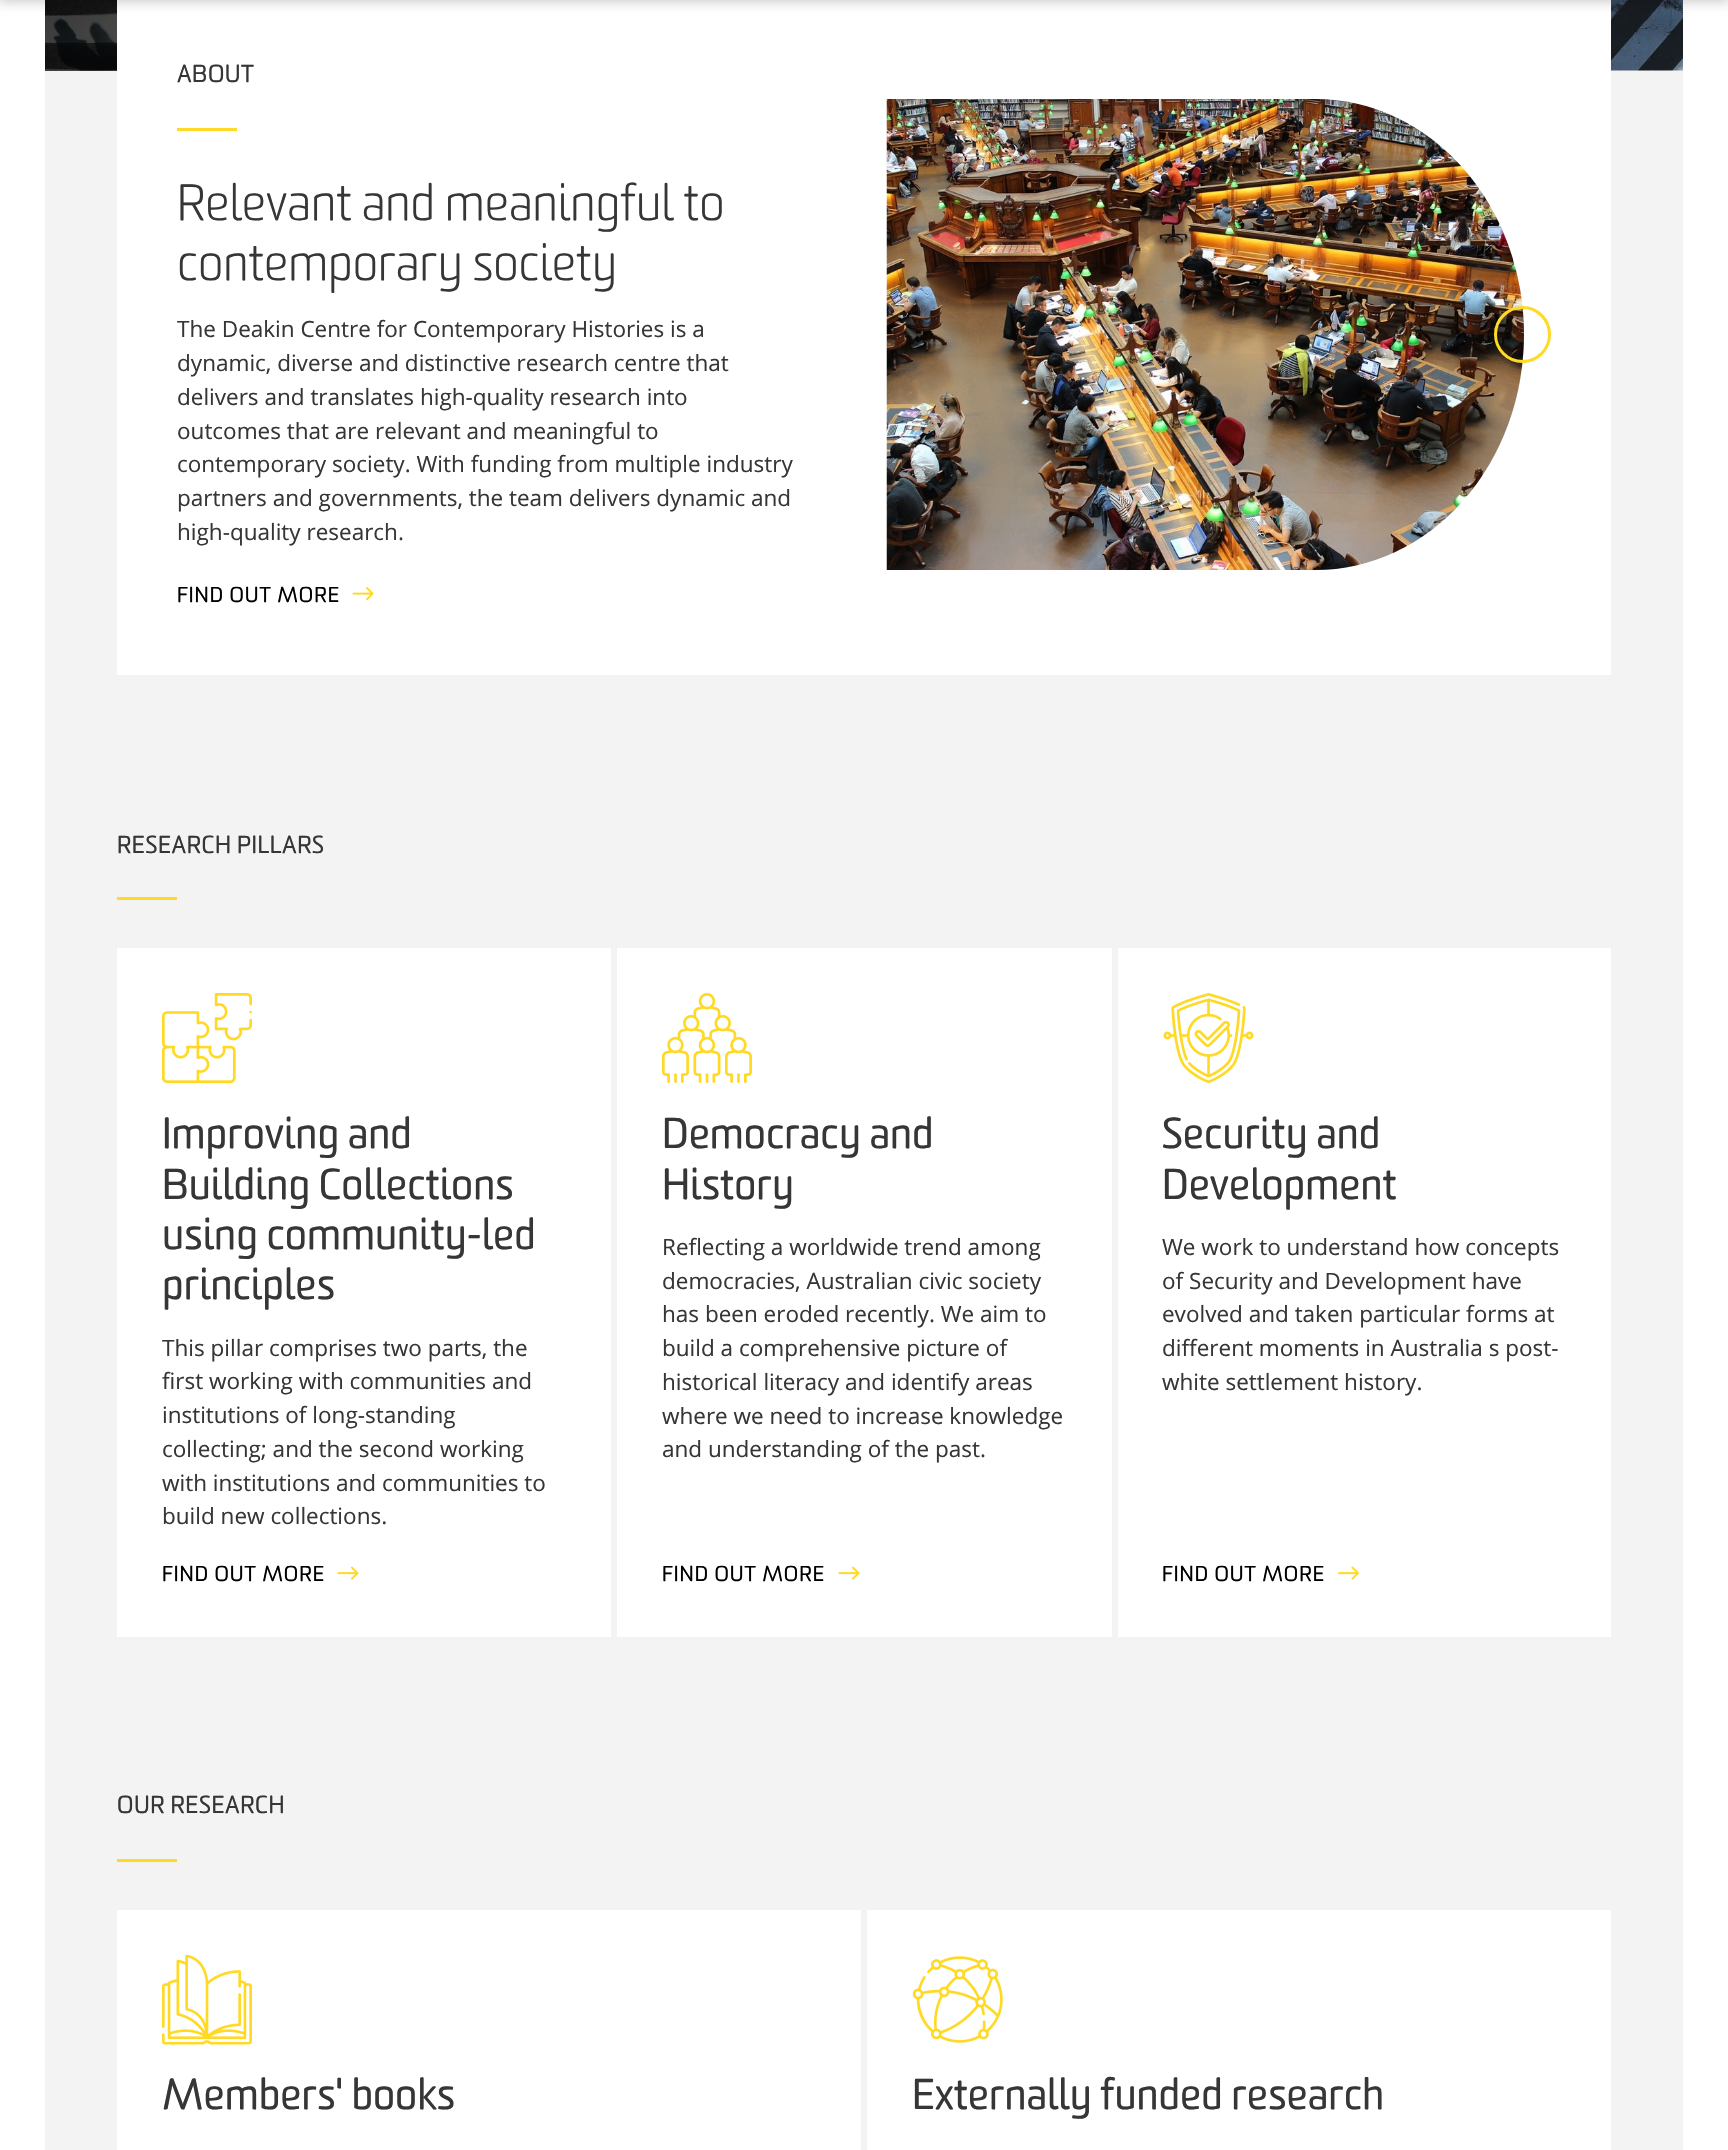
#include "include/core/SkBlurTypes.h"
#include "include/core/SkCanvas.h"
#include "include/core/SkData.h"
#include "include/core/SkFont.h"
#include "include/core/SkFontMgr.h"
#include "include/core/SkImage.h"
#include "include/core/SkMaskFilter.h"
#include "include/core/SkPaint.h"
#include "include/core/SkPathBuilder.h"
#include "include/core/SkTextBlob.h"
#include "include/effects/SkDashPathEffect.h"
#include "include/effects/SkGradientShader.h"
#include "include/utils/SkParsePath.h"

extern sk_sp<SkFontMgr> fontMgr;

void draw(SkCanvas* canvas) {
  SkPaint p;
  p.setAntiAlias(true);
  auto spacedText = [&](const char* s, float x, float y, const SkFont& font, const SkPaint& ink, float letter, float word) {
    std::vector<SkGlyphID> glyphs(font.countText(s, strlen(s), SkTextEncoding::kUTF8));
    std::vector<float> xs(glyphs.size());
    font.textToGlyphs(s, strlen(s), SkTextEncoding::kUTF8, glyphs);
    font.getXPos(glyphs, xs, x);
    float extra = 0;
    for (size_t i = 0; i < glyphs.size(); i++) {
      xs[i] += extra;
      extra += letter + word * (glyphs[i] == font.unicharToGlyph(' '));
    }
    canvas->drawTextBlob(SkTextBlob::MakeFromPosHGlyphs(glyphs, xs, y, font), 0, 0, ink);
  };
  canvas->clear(SkColorSetRGB(243, 243, 243));
  p.setColor(SK_ColorWHITE);
  canvas->drawRect(SkRect::MakeLTRB(1683, 0, 1728, 2150), p);
  canvas->drawRect(SkRect::MakeLTRB(0, 0, 45, 2150), p);
  canvas->drawImageRect(SkImages::DeferredFromEncodedData(SkData::MakeFromFileName("images/1.png")), SkRect::MakeLTRB(45, 0, 1683, 71), SkSamplingOptions());
  {
    const SkColor colors[] = {SkColorSetARGB(184, 0, 0, 0), SkColorSetARGB(143, 0, 0, 0), SkColorSetARGB(0, 0, 0, 0)};
    const float stops[] = {0, 0.27f, 0.73f};
    const SkPoint ends[] = {{45, -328}, {1428, -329}};
    p.setShader(SkGradientShader::MakeLinear(ends, colors, stops, 3, SkTileMode::kClamp));
    p.setAlpha(255);
  }
  canvas->drawRect(SkRect::MakeLTRB(45, 0, 117, 71), p);
  p.setShader(nullptr);
  p.setColor(SK_ColorWHITE);
  canvas->drawRect(SkRect::MakeLTRB(117, 0, 1611, 675), p);
  p.setColor(SkColorSetARGB(51, 0, 0, 0));
  p.setMaskFilter(SkMaskFilter::MakeBlur(kNormal_SkBlurStyle, 6));
  canvas->drawRect(SkRect::MakeLTRB(-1, -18, 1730, 2), p);
  p.setMaskFilter(nullptr);
  p.setColor(SkColorSetRGB(255, 217, 35));
  canvas->drawRect(SkRect::MakeLTRB(177, 128, 237, 131), p);
  canvas->drawImageRect(SkImages::DeferredFromEncodedData(SkData::MakeFromFileName("images/2.png")), SkRect::MakeLTRB(352, 587, 374, 601), SkSamplingOptions());
  canvas->drawImageRect(SkImages::DeferredFromEncodedData(SkData::MakeFromFileName("images/3.png")), SkRect::MakeLTRB(886, 99, 1524, 570), SkSamplingOptions());
  p.setStyle(SkPaint::kStroke_Style);
  p.setStrokeWidth(3);
  canvas->drawCircle(1522.5f, 334.5f, 27, p);
  p.setStyle(SkPaint::kFill_Style);
  canvas->drawRect(SkRect::MakeLTRB(117, 897, 177, 900), p);
  p.setColor(SK_ColorWHITE);
  canvas->drawRect(SkRect::MakeLTRB(117, 948, 611, 1637), p);
  canvas->drawImageRect(SkImages::DeferredFromEncodedData(SkData::MakeFromFileName("images/4.png")), SkRect::MakeLTRB(162, 993, 252, 1083), SkSamplingOptions());
  canvas->drawImageRect(SkImages::DeferredFromEncodedData(SkData::MakeFromFileName("images/5.png")), SkRect::MakeLTRB(337, 1566, 359, 1580), SkSamplingOptions());
  canvas->drawRect(SkRect::MakeLTRB(617, 948, 1112, 1637), p);
  canvas->drawImageRect(SkImages::DeferredFromEncodedData(SkData::MakeFromFileName("images/6.png")), SkRect::MakeLTRB(662, 993, 752, 1083), SkSamplingOptions());
  canvas->drawImageRect(SkImages::DeferredFromEncodedData(SkData::MakeFromFileName("images/5.png")), SkRect::MakeLTRB(838, 1566, 860, 1580), SkSamplingOptions());
  canvas->drawRect(SkRect::MakeLTRB(1118, 948, 1611, 1637), p);
  canvas->drawImageRect(SkImages::DeferredFromEncodedData(SkData::MakeFromFileName("images/7.png")), SkRect::MakeLTRB(1163, 993, 1254, 1083), SkSamplingOptions());
  canvas->drawImageRect(SkImages::DeferredFromEncodedData(SkData::MakeFromFileName("images/8.png")), SkRect::MakeLTRB(1338, 1566, 1359, 1580), SkSamplingOptions());
  p.setColor(SkColorSetRGB(255, 217, 35));
  canvas->drawRect(SkRect::MakeLTRB(117, 1859, 177, 1862), p);
  p.setColor(SK_ColorWHITE);
  canvas->drawRect(SkRect::MakeLTRB(117, 1910, 861, 2150), p);
  canvas->drawImageRect(SkImages::DeferredFromEncodedData(SkData::MakeFromFileName("images/9.png")), SkRect::MakeLTRB(162, 1955, 252, 2045), SkSamplingOptions());
  canvas->drawRect(SkRect::MakeLTRB(867, 1910, 1611, 2150), p);
  canvas->drawImageRect(SkImages::DeferredFromEncodedData(SkData::MakeFromFileName("images/10.png")), SkRect::MakeLTRB(912, 1956, 1003, 2043), SkSamplingOptions());
  SkFont font1(fontMgr->matchFamilyStyle("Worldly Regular", SkFontStyle::Normal()), 24);
  font1.setSubpixel(true);
  p.setColor(SkColorSetRGB(55, 54, 54));
  spacedText("ABOUT", 177, 82, font1, p, 0.5f, 0);
  SkFont font2(fontMgr->matchFamilyStyle("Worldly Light", SkFontStyle(300, SkFontStyle::kNormal_Width, SkFontStyle::kUpright_Slant)), 49.5f);
  font2.setSubpixel(true);
  canvas->drawString("Relevant and meaningful to", 177, 220, font2, p);
  canvas->drawString("contemporary society", 177, 280, font2, p);
  SkFont font3(fontMgr->matchFamilyStyle("Open Sans", SkFontStyle::Normal()), 22.5f);
  font3.setSubpixel(true);
  canvas->drawString("The Deakin Centre for Contemporary Histories is a", 177, 337, font3, p);
  canvas->drawString("dynamic, diverse and distinctive research centre that", 177, 371, font3, p);
  canvas->drawString("delivers and translates high-quality research into", 177, 405, font3, p);
  canvas->drawString("outcomes that are relevant and meaningful to", 177, 439, font3, p);
  canvas->drawString("contemporary society. With funding from multiple industry", 177, 472, font3, p);
  canvas->drawString("partners and governments, the team delivers dynamic and", 177, 506, font3, p);
  canvas->drawString("high-quality research.", 177, 540, font3, p);
  SkFont font4(fontMgr->matchFamilyStyle("Worldly Regular", SkFontStyle::Normal()), 21);
  font4.setSubpixel(true);
  p.setColor(SK_ColorBLACK);
  spacedText("FIND OUT MORE", 177, 602, font4, p, 1, 0);
  p.setColor(SkColorSetRGB(55, 54, 54));
  spacedText("RESEARCH PILLARS", 117, 853, font1, p, 0.5f, 0);
  SkFont font5(fontMgr->matchFamilyStyle("Worldly Regular", SkFontStyle::Normal()), 42);
  font5.setSubpixel(true);
  canvas->drawString("Improving and", 162, 1148, font5, p);
  canvas->drawString("Building Collections", 162, 1199, font5, p);
  canvas->drawString("using community-led", 162, 1249, font5, p);
  canvas->drawString("principles", 162, 1299, font5, p);
  canvas->drawString("This pillar comprises two parts, the", 162, 1356, font3, p);
  canvas->drawString("first working with communities and", 162, 1389, font3, p);
  canvas->drawString("institutions of long-standing", 162, 1423, font3, p);
  canvas->drawString("collecting; and the second working", 162, 1457, font3, p);
  canvas->drawString("with institutions and communities to", 162, 1491, font3, p);
  canvas->drawString("build new collections.", 162, 1524, font3, p);
  p.setColor(SK_ColorBLACK);
  spacedText("FIND OUT MORE", 162, 1581, font4, p, 1, 0);
  p.setColor(SkColorSetRGB(55, 54, 54));
  canvas->drawString("Democracy and", 662, 1148, font5, p);
  canvas->drawString("History", 662, 1199, font5, p);
  canvas->drawString("Reflecting a worldwide trend among", 662, 1255, font3, p);
  canvas->drawString("democracies, Australian civic society", 662, 1289, font3, p);
  canvas->drawString("has been eroded recently. We aim to", 662, 1322, font3, p);
  canvas->drawString("build a comprehensive picture of", 662, 1356, font3, p);
  canvas->drawString("historical literacy and identify areas", 662, 1390, font3, p);
  canvas->drawString("where we need to increase knowledge", 662, 1424, font3, p);
  canvas->drawString("and understanding of the past.", 662, 1457, font3, p);
  p.setColor(SK_ColorBLACK);
  spacedText("FIND OUT MORE", 662, 1581, font4, p, 1, 0);
  p.setColor(SkColorSetRGB(55, 54, 54));
  canvas->drawString("Security and", 1162, 1148, font5, p);
  canvas->drawString("Development", 1162, 1199, font5, p);
  canvas->drawString("We work to understand how concepts", 1162, 1255, font3, p);
  canvas->drawString("of Security and Development have", 1162, 1289, font3, p);
  canvas->drawString("evolved and taken particular forms at", 1162, 1322, font3, p);
  canvas->drawString("different moments in Australia s post-", 1162, 1356, font3, p);
  canvas->drawString("white settlement history.", 1162, 1390, font3, p);
  p.setColor(SK_ColorBLACK);
  spacedText("FIND OUT MORE", 1162, 1581, font4, p, 1, 0);
  p.setColor(SkColorSetRGB(55, 54, 54));
  spacedText("OUR RESEARCH", 117, 1813, font1, p, 0.5f, 0);
  canvas->drawString("Members' books", 162, 2109, font5, p);
  canvas->drawString("Externally funded research", 912, 2109, font5, p);
}
